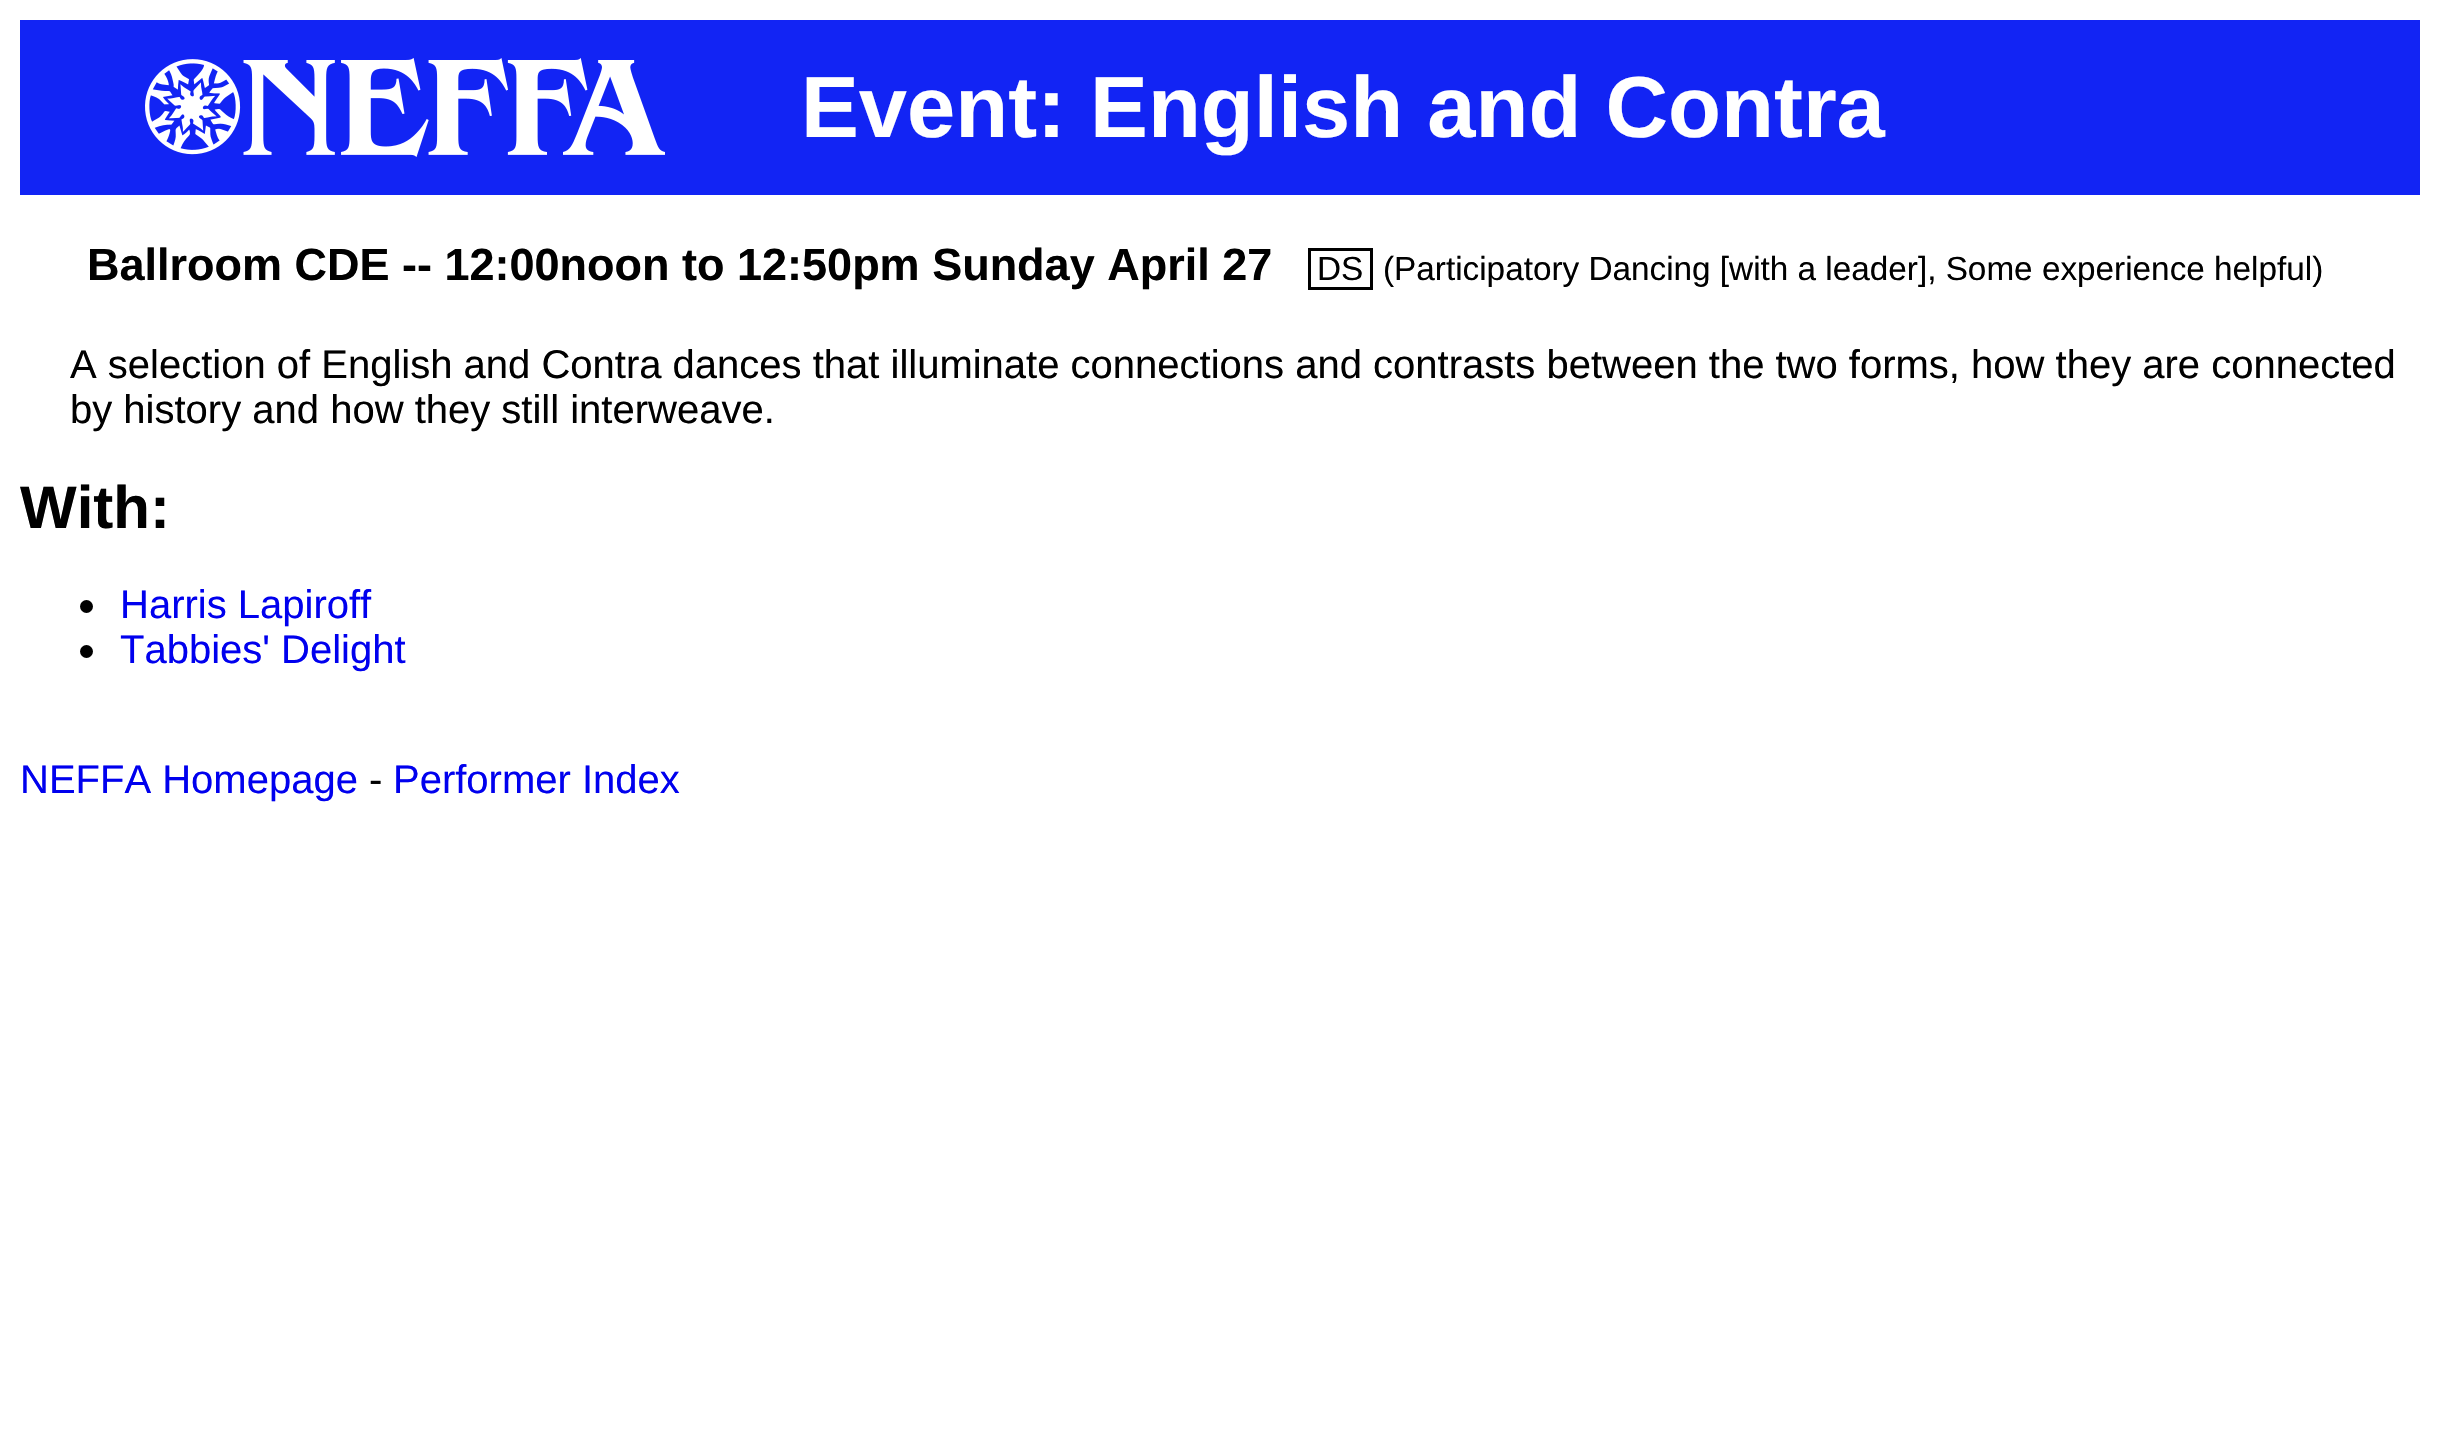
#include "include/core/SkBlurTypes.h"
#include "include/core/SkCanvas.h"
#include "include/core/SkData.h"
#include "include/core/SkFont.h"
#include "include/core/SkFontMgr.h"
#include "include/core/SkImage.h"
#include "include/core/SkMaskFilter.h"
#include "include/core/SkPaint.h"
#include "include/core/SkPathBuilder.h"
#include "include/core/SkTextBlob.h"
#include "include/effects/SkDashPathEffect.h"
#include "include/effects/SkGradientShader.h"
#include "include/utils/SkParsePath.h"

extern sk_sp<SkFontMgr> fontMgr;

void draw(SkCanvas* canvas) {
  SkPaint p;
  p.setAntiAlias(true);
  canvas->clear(SK_ColorWHITE);
  p.setColor(SkColorSetRGB(18, 36, 244));
  canvas->drawRect(SkRect::MakeLTRB(20, 20, 2420, 195), p);
  canvas->drawImageRect(SkImages::DeferredFromEncodedData(SkData::MakeFromFileName("images/1.png")), SkRect::MakeLTRB(145, 58, 665, 157), SkSamplingOptions());
  p.setStyle(SkPaint::kStroke_Style);
  p.setStrokeWidth(3);
  p.setColor(SK_ColorBLACK);
  canvas->drawRect(SkRect::MakeLTRB(1309.5f, 249.5f, 1371.5f, 288.5f), p);
  p.setStyle(SkPaint::kFill_Style);
  canvas->drawCircle(86.5f, 606.5f, 6.5f, p);
  canvas->drawCircle(86.5f, 651.5f, 6.5f, p);
  SkFont font1(fontMgr->matchFamilyStyle("Liberation Sans", SkFontStyle::Bold()), 86.7f);
  font1.setSubpixel(true);
  p.setColor(SK_ColorWHITE);
  canvas->drawString("Event: English and Contra", 801, 137, font1, p);
  SkFont font2(fontMgr->matchFamilyStyle("Liberation Sans", SkFontStyle::Bold()), 45);
  font2.setSubpixel(true);
  p.setColor(SK_ColorBLACK);
  canvas->drawString("Ballroom CDE -- 12:00noon to 12:50pm Sunday April 27", 87, 280, font2, p);
  SkFont font3(fontMgr->matchFamilyStyle("Liberation Sans", SkFontStyle::Normal()), 33.3f);
  font3.setSubpixel(true);
  canvas->drawString("DS", 1317, 280, font3, p);
  canvas->drawString("(Participatory Dancing [with a leader], Some experience helpful)", 1383, 280, font3, p);
  SkFont font4(fontMgr->matchFamilyStyle("Liberation Sans", SkFontStyle::Normal()), 40);
  font4.setSubpixel(true);
  canvas->drawString("A selection of English and Contra dances that illuminate connections and contrasts between the two forms, how they are connected", 70, 378, font4, p);
  canvas->drawString("by history and how they still interweave.", 70, 423, font4, p);
  SkFont font5(fontMgr->matchFamilyStyle("Liberation Sans", SkFontStyle::Bold()), 60);
  font5.setSubpixel(true);
  canvas->drawString("With:", 20, 528, font5, p);
  p.setColor(SkColorSetRGB(0, 0, 238));
  canvas->drawString("Harris Lapiroff", 120, 618, font4, p);
  canvas->drawString("Tabbies' Delight", 120, 663, font4, p);
  canvas->drawString("NEFFA Homepage", 20, 793, font4, p);
  p.setColor(SK_ColorBLACK);
  canvas->drawString("-", 369, 793, font4, p);
  p.setColor(SkColorSetRGB(0, 0, 238));
  canvas->drawString("Performer Index", 393, 793, font4, p);
}
